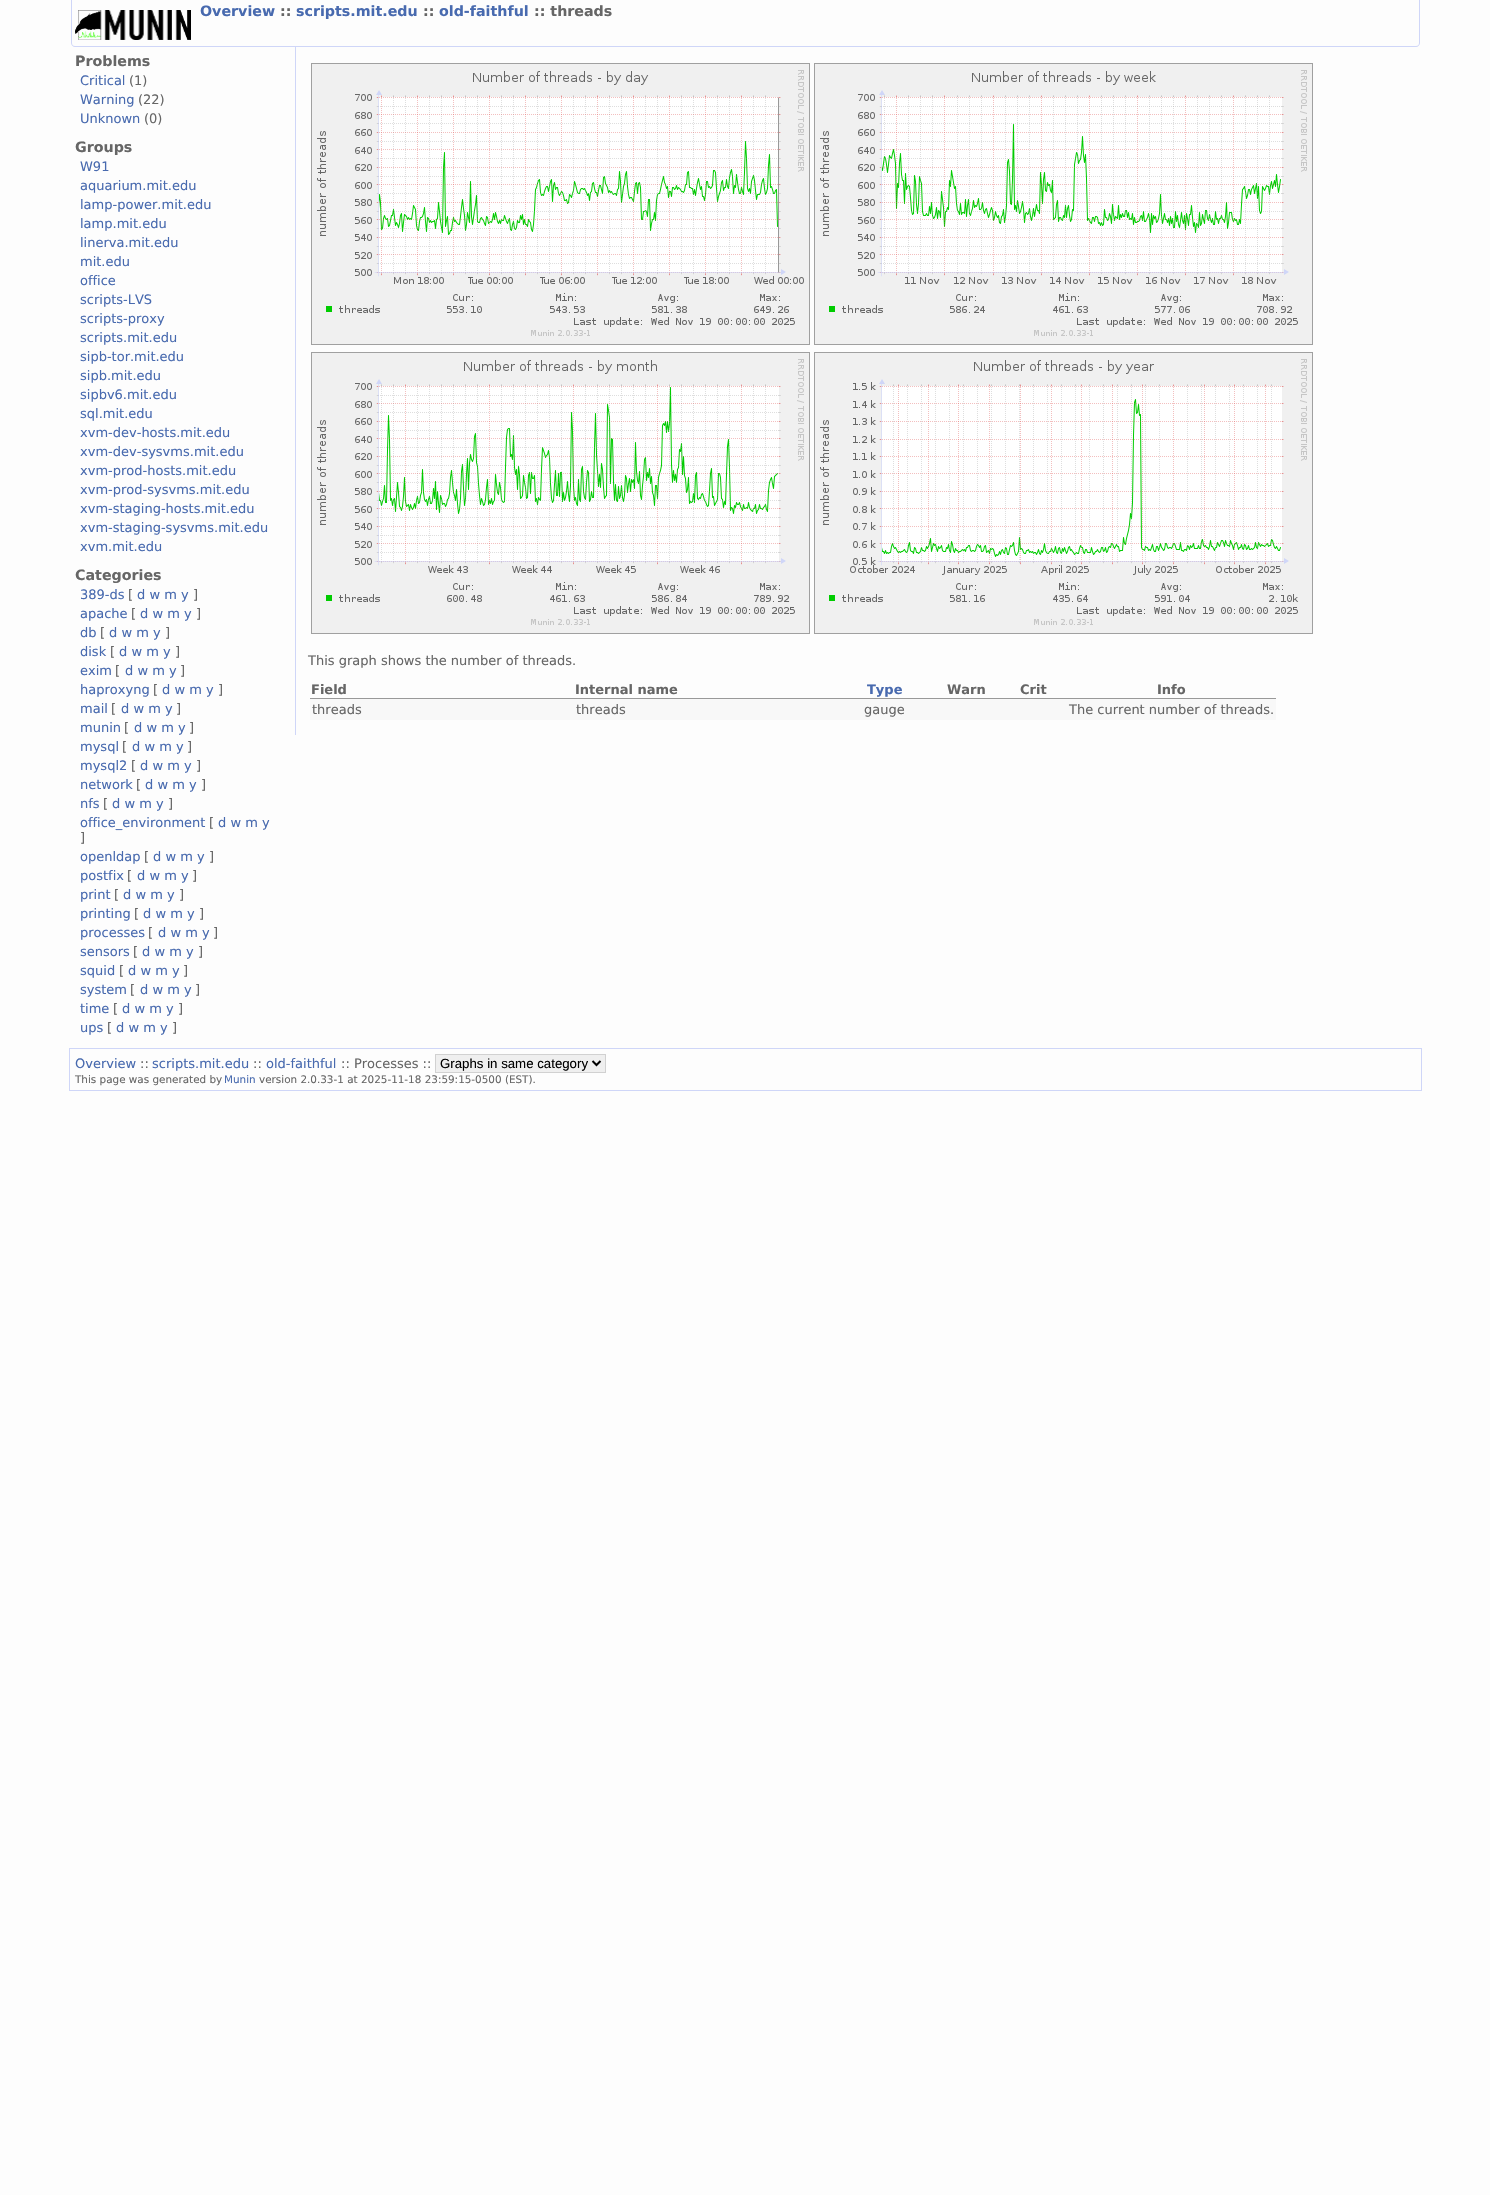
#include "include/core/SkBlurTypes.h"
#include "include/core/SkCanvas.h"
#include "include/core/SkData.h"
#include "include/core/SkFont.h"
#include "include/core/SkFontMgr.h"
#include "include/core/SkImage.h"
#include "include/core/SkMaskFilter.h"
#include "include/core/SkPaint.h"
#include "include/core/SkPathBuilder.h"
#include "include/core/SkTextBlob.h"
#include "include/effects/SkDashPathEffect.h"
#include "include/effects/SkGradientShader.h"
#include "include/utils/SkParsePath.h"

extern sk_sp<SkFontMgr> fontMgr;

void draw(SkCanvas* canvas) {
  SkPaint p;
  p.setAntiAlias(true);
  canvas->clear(SkColorSetRGB(253, 253, 253));
  p.setColor(SkColorSetRGB(207, 214, 248));
  canvas->drawPath(SkPathBuilder(SkPathFillType::kEvenOdd).moveTo(71, 0).lineTo(1420, 0).lineTo(1420, 43).cubicTo(1420, 45, 1418, 47, 1416, 47).lineTo(75, 47).cubicTo(73, 47, 71, 45, 71, 43).close().moveTo(72, 0).lineTo(1419, 0).lineTo(1419, 43).cubicTo(1419, 45, 1418, 46, 1416, 46).lineTo(75, 46).cubicTo(73, 46, 72, 45, 72, 43).close().detach(), p);
  canvas->drawImageRect(SkImages::DeferredFromEncodedData(SkData::MakeFromFileName("images/1.png")), SkRect::MakeLTRB(75, 10, 191, 40), SkSamplingOptions());
  canvas->drawRect(SkRect::MakeLTRB(295, 47, 296, 735), p);
  p.setStyle(SkPaint::kStroke_Style);
  p.setStrokeWidth(1);
  p.setColor(SkColorSetRGB(160, 160, 160));
  canvas->drawRect(SkRect::MakeLTRB(311.5f, 63.5f, 809.5f, 344.5f), p);
  canvas->drawImageRect(SkImages::DeferredFromEncodedData(SkData::MakeFromFileName("images/2.png")), SkRect::MakeLTRB(312, 64, 809, 344), SkSamplingOptions());
  canvas->drawRect(SkRect::MakeLTRB(814.5f, 63.5f, 1312.5f, 344.5f), p);
  canvas->drawImageRect(SkImages::DeferredFromEncodedData(SkData::MakeFromFileName("images/3.png")), SkRect::MakeLTRB(815, 64, 1312, 344), SkSamplingOptions());
  canvas->drawRect(SkRect::MakeLTRB(311.5f, 352.5f, 809.5f, 633.5f), p);
  canvas->drawImageRect(SkImages::DeferredFromEncodedData(SkData::MakeFromFileName("images/4.png")), SkRect::MakeLTRB(312, 353, 809, 633), SkSamplingOptions());
  canvas->drawRect(SkRect::MakeLTRB(814.5f, 352.5f, 1312.5f, 633.5f), p);
  canvas->drawImageRect(SkImages::DeferredFromEncodedData(SkData::MakeFromFileName("images/5.png")), SkRect::MakeLTRB(815, 353, 1312, 633), SkSamplingOptions());
  p.setStyle(SkPaint::kFill_Style);
  p.setColor(SkColorSetRGB(153, 153, 153));
  canvas->drawRect(SkRect::MakeLTRB(310, 698, 1276, 699), p);
  p.setColor(SkColorSetRGB(248, 248, 248));
  canvas->drawRect(SkRect::MakeLTRB(310, 699, 1276, 720), p);
  p.setStyle(SkPaint::kStroke_Style);
  p.setColor(SkColorSetRGB(207, 214, 248));
  canvas->drawRect(SkRect::MakeLTRB(69.5f, 1048.5f, 1421.5f, 1090.5f), p);
  p.setStyle(SkPaint::kFill_Style);
  p.setColor(SkColorSetRGB(239, 239, 239));
  canvas->drawRect(SkRect::MakeLTRB(435.5f, 1054.5f, 605.5f, 1072.5f), p);
  p.setStyle(SkPaint::kStroke_Style);
  p.setColor(SkColorSetRGB(209, 209, 209));
  canvas->drawRect(SkRect::MakeLTRB(435.5f, 1054.5f, 605.5f, 1072.5f), p);
  p.setStrokeWidth(2);
  p.setColor(SK_ColorBLACK);
  canvas->drawPath(SkPathBuilder().moveTo(592.5f, 1061).lineTo(596.5f, 1065).lineTo(600.5f, 1061).detach(), p);
  SkFont font1(fontMgr->matchFamilyStyle("DejaVu Sans", SkFontStyle::Bold()), 14.25f);
  font1.setSubpixel(true);
  p.setStyle(SkPaint::kFill_Style);
  p.setColor(SkColorSetRGB(72, 106, 175));
  canvas->drawString("Overview", 200, 16, font1, p);
  p.setColor(SkColorSetRGB(102, 102, 102));
  canvas->drawString("::", 280, 16, font1, p);
  p.setColor(SkColorSetRGB(72, 106, 175));
  canvas->drawString("scripts.mit.edu", 296, 16, font1, p);
  p.setColor(SkColorSetRGB(102, 102, 102));
  canvas->drawString("::", 423, 16, font1, p);
  p.setColor(SkColorSetRGB(72, 106, 175));
  canvas->drawString("old-faithful", 439, 16, font1, p);
  p.setColor(SkColorSetRGB(102, 102, 102));
  canvas->drawString(":: threads", 534, 16, font1, p);
  canvas->drawString("Problems", 75, 66, font1, p);
  SkFont font2(fontMgr->matchFamilyStyle("DejaVu Sans", SkFontStyle::Normal()), 13);
  font2.setSubpixel(true);
  p.setColor(SkColorSetRGB(72, 106, 175));
  canvas->drawString("Critical", 80, 85, font2, p);
  p.setColor(SkColorSetRGB(102, 102, 102));
  canvas->drawString("(1)", 129, 85, font2, p);
  p.setColor(SkColorSetRGB(72, 106, 175));
  canvas->drawString("Warning", 80, 104, font2, p);
  p.setColor(SkColorSetRGB(102, 102, 102));
  canvas->drawString("(22)", 138, 104, font2, p);
  p.setColor(SkColorSetRGB(72, 106, 175));
  canvas->drawString("Unknown", 80, 123, font2, p);
  p.setColor(SkColorSetRGB(102, 102, 102));
  canvas->drawString("(0)", 144, 123, font2, p);
  canvas->drawString("Groups", 75, 152, font1, p);
  p.setColor(SkColorSetRGB(72, 106, 175));
  canvas->drawString("W91", 80, 171, font2, p);
  canvas->drawString("aquarium.mit.edu", 80, 190, font2, p);
  canvas->drawString("lamp-power.mit.edu", 80, 209, font2, p);
  canvas->drawString("lamp.mit.edu", 80, 228, font2, p);
  canvas->drawString("linerva.mit.edu", 80, 247, font2, p);
  canvas->drawString("mit.edu", 80, 266, font2, p);
  canvas->drawString("office", 80, 285, font2, p);
  canvas->drawString("scripts-LVS", 80, 304, font2, p);
  canvas->drawString("scripts-proxy", 80, 323, font2, p);
  canvas->drawString("scripts.mit.edu", 80, 342, font2, p);
  canvas->drawString("sipb-tor.mit.edu", 80, 361, font2, p);
  canvas->drawString("sipb.mit.edu", 80, 380, font2, p);
  canvas->drawString("sipbv6.mit.edu", 80, 399, font2, p);
  canvas->drawString("sql.mit.edu", 80, 418, font2, p);
  canvas->drawString("xvm-dev-hosts.mit.edu", 80, 437, font2, p);
  canvas->drawString("xvm-dev-sysvms.mit.edu", 80, 456, font2, p);
  canvas->drawString("xvm-prod-hosts.mit.edu", 80, 475, font2, p);
  canvas->drawString("xvm-prod-sysvms.mit.edu", 80, 494, font2, p);
  canvas->drawString("xvm-staging-hosts.mit.edu", 80, 513, font2, p);
  canvas->drawString("xvm-staging-sysvms.mit.edu", 80, 532, font2, p);
  canvas->drawString("xvm.mit.edu", 80, 551, font2, p);
  p.setColor(SkColorSetRGB(102, 102, 102));
  canvas->drawString("Categories", 75, 580, font1, p);
  p.setColor(SkColorSetRGB(72, 106, 175));
  canvas->drawString("389-ds", 80, 599, font2, p);
  p.setColor(SkColorSetRGB(102, 102, 102));
  canvas->drawString("[", 128, 599, font2, p);
  p.setColor(SkColorSetRGB(72, 106, 175));
  canvas->drawString("d w m y", 137, 599, font2, p);
  p.setColor(SkColorSetRGB(102, 102, 102));
  canvas->drawString("]", 193, 599, font2, p);
  p.setColor(SkColorSetRGB(72, 106, 175));
  canvas->drawString("apache", 80, 618, font2, p);
  p.setColor(SkColorSetRGB(102, 102, 102));
  canvas->drawString("[", 131, 618, font2, p);
  p.setColor(SkColorSetRGB(72, 106, 175));
  canvas->drawString("d w m y", 140, 618, font2, p);
  p.setColor(SkColorSetRGB(102, 102, 102));
  canvas->drawString("]", 196, 618, font2, p);
  p.setColor(SkColorSetRGB(72, 106, 175));
  canvas->drawString("db", 80, 637, font2, p);
  p.setColor(SkColorSetRGB(102, 102, 102));
  canvas->drawString("[", 100, 637, font2, p);
  p.setColor(SkColorSetRGB(72, 106, 175));
  canvas->drawString("d w m y", 109, 637, font2, p);
  p.setColor(SkColorSetRGB(102, 102, 102));
  canvas->drawString("]", 165, 637, font2, p);
  p.setColor(SkColorSetRGB(72, 106, 175));
  canvas->drawString("disk", 80, 656, font2, p);
  p.setColor(SkColorSetRGB(102, 102, 102));
  canvas->drawString("[", 110, 656, font2, p);
  p.setColor(SkColorSetRGB(72, 106, 175));
  canvas->drawString("d w m y", 119, 656, font2, p);
  p.setColor(SkColorSetRGB(102, 102, 102));
  canvas->drawString("]", 175, 656, font2, p);
  p.setColor(SkColorSetRGB(72, 106, 175));
  canvas->drawString("exim", 80, 675, font2, p);
  p.setColor(SkColorSetRGB(102, 102, 102));
  canvas->drawString("[", 115, 675, font2, p);
  p.setColor(SkColorSetRGB(72, 106, 175));
  canvas->drawString("d w m y", 125, 675, font2, p);
  p.setColor(SkColorSetRGB(102, 102, 102));
  canvas->drawString("]", 180, 675, font2, p);
  p.setColor(SkColorSetRGB(72, 106, 175));
  canvas->drawString("haproxyng", 80, 694, font2, p);
  p.setColor(SkColorSetRGB(102, 102, 102));
  canvas->drawString("[", 153, 694, font2, p);
  p.setColor(SkColorSetRGB(72, 106, 175));
  canvas->drawString("d w m y", 162, 694, font2, p);
  p.setColor(SkColorSetRGB(102, 102, 102));
  canvas->drawString("]", 218, 694, font2, p);
  p.setColor(SkColorSetRGB(72, 106, 175));
  canvas->drawString("mail", 80, 713, font2, p);
  p.setColor(SkColorSetRGB(102, 102, 102));
  canvas->drawString("[", 111, 713, font2, p);
  p.setColor(SkColorSetRGB(72, 106, 175));
  canvas->drawString("d w m y", 121, 713, font2, p);
  p.setColor(SkColorSetRGB(102, 102, 102));
  canvas->drawString("]", 176, 713, font2, p);
  p.setColor(SkColorSetRGB(72, 106, 175));
  canvas->drawString("munin", 80, 732, font2, p);
  p.setColor(SkColorSetRGB(102, 102, 102));
  canvas->drawString("[", 124, 732, font2, p);
  p.setColor(SkColorSetRGB(72, 106, 175));
  canvas->drawString("d w m y", 134, 732, font2, p);
  p.setColor(SkColorSetRGB(102, 102, 102));
  canvas->drawString("]", 189, 732, font2, p);
  p.setColor(SkColorSetRGB(72, 106, 175));
  canvas->drawString("mysql", 80, 751, font2, p);
  p.setColor(SkColorSetRGB(102, 102, 102));
  canvas->drawString("[", 122, 751, font2, p);
  p.setColor(SkColorSetRGB(72, 106, 175));
  canvas->drawString("d w m y", 132, 751, font2, p);
  p.setColor(SkColorSetRGB(102, 102, 102));
  canvas->drawString("]", 187, 751, font2, p);
  p.setColor(SkColorSetRGB(72, 106, 175));
  canvas->drawString("mysql2", 80, 770, font2, p);
  p.setColor(SkColorSetRGB(102, 102, 102));
  canvas->drawString("[", 131, 770, font2, p);
  p.setColor(SkColorSetRGB(72, 106, 175));
  canvas->drawString("d w m y", 140, 770, font2, p);
  p.setColor(SkColorSetRGB(102, 102, 102));
  canvas->drawString("]", 196, 770, font2, p);
  p.setColor(SkColorSetRGB(72, 106, 175));
  canvas->drawString("network", 80, 789, font2, p);
  p.setColor(SkColorSetRGB(102, 102, 102));
  canvas->drawString("[", 136, 789, font2, p);
  p.setColor(SkColorSetRGB(72, 106, 175));
  canvas->drawString("d w m y", 145, 789, font2, p);
  p.setColor(SkColorSetRGB(102, 102, 102));
  canvas->drawString("]", 201, 789, font2, p);
  p.setColor(SkColorSetRGB(72, 106, 175));
  canvas->drawString("nfs", 80, 808, font2, p);
  p.setColor(SkColorSetRGB(102, 102, 102));
  canvas->drawString("[", 103, 808, font2, p);
  p.setColor(SkColorSetRGB(72, 106, 175));
  canvas->drawString("d w m y", 112, 808, font2, p);
  p.setColor(SkColorSetRGB(102, 102, 102));
  canvas->drawString("]", 168, 808, font2, p);
  p.setColor(SkColorSetRGB(72, 106, 175));
  canvas->drawString("office_environment", 80, 827, font2, p);
  p.setColor(SkColorSetRGB(102, 102, 102));
  canvas->drawString("[", 209, 827, font2, p);
  p.setColor(SkColorSetRGB(72, 106, 175));
  canvas->drawString("d w m y", 218, 827, font2, p);
  p.setColor(SkColorSetRGB(102, 102, 102));
  canvas->drawString("]", 80, 842, font2, p);
  p.setColor(SkColorSetRGB(72, 106, 175));
  canvas->drawString("openldap", 80, 861, font2, p);
  p.setColor(SkColorSetRGB(102, 102, 102));
  canvas->drawString("[", 144, 861, font2, p);
  p.setColor(SkColorSetRGB(72, 106, 175));
  canvas->drawString("d w m y", 153, 861, font2, p);
  p.setColor(SkColorSetRGB(102, 102, 102));
  canvas->drawString("]", 209, 861, font2, p);
  p.setColor(SkColorSetRGB(72, 106, 175));
  canvas->drawString("postfix", 80, 880, font2, p);
  p.setColor(SkColorSetRGB(102, 102, 102));
  canvas->drawString("[", 127, 880, font2, p);
  p.setColor(SkColorSetRGB(72, 106, 175));
  canvas->drawString("d w m y", 137, 880, font2, p);
  p.setColor(SkColorSetRGB(102, 102, 102));
  canvas->drawString("]", 192, 880, font2, p);
  p.setColor(SkColorSetRGB(72, 106, 175));
  canvas->drawString("print", 80, 899, font2, p);
  p.setColor(SkColorSetRGB(102, 102, 102));
  canvas->drawString("[", 114, 899, font2, p);
  p.setColor(SkColorSetRGB(72, 106, 175));
  canvas->drawString("d w m y", 123, 899, font2, p);
  p.setColor(SkColorSetRGB(102, 102, 102));
  canvas->drawString("]", 179, 899, font2, p);
  p.setColor(SkColorSetRGB(72, 106, 175));
  canvas->drawString("printing", 80, 918, font2, p);
  p.setColor(SkColorSetRGB(102, 102, 102));
  canvas->drawString("[", 134, 918, font2, p);
  p.setColor(SkColorSetRGB(72, 106, 175));
  canvas->drawString("d w m y", 143, 918, font2, p);
  p.setColor(SkColorSetRGB(102, 102, 102));
  canvas->drawString("]", 199, 918, font2, p);
  p.setColor(SkColorSetRGB(72, 106, 175));
  canvas->drawString("processes", 80, 937, font2, p);
  p.setColor(SkColorSetRGB(102, 102, 102));
  canvas->drawString("[", 148, 937, font2, p);
  p.setColor(SkColorSetRGB(72, 106, 175));
  canvas->drawString("d w m y", 158, 937, font2, p);
  p.setColor(SkColorSetRGB(102, 102, 102));
  canvas->drawString("]", 213, 937, font2, p);
  p.setColor(SkColorSetRGB(72, 106, 175));
  canvas->drawString("sensors", 80, 956, font2, p);
  p.setColor(SkColorSetRGB(102, 102, 102));
  canvas->drawString("[", 133, 956, font2, p);
  p.setColor(SkColorSetRGB(72, 106, 175));
  canvas->drawString("d w m y", 142, 956, font2, p);
  p.setColor(SkColorSetRGB(102, 102, 102));
  canvas->drawString("]", 198, 956, font2, p);
  p.setColor(SkColorSetRGB(72, 106, 175));
  canvas->drawString("squid", 80, 975, font2, p);
  p.setColor(SkColorSetRGB(102, 102, 102));
  canvas->drawString("[", 119, 975, font2, p);
  p.setColor(SkColorSetRGB(72, 106, 175));
  canvas->drawString("d w m y", 128, 975, font2, p);
  p.setColor(SkColorSetRGB(102, 102, 102));
  canvas->drawString("]", 183, 975, font2, p);
  p.setColor(SkColorSetRGB(72, 106, 175));
  canvas->drawString("system", 80, 994, font2, p);
  p.setColor(SkColorSetRGB(102, 102, 102));
  canvas->drawString("[", 130, 994, font2, p);
  p.setColor(SkColorSetRGB(72, 106, 175));
  canvas->drawString("d w m y", 140, 994, font2, p);
  p.setColor(SkColorSetRGB(102, 102, 102));
  canvas->drawString("]", 195, 994, font2, p);
  p.setColor(SkColorSetRGB(72, 106, 175));
  canvas->drawString("time", 80, 1013, font2, p);
  p.setColor(SkColorSetRGB(102, 102, 102));
  canvas->drawString("[", 113, 1013, font2, p);
  p.setColor(SkColorSetRGB(72, 106, 175));
  canvas->drawString("d w m y", 122, 1013, font2, p);
  p.setColor(SkColorSetRGB(102, 102, 102));
  canvas->drawString("]", 178, 1013, font2, p);
  p.setColor(SkColorSetRGB(72, 106, 175));
  canvas->drawString("ups", 80, 1032, font2, p);
  p.setColor(SkColorSetRGB(102, 102, 102));
  canvas->drawString("[", 107, 1032, font2, p);
  p.setColor(SkColorSetRGB(72, 106, 175));
  canvas->drawString("d w m y", 116, 1032, font2, p);
  p.setColor(SkColorSetRGB(102, 102, 102));
  canvas->drawString("]", 172, 1032, font2, p);
  canvas->drawString("This graph shows the number of threads.", 308, 665, font2, p);
  SkFont font3(fontMgr->matchFamilyStyle("DejaVu Sans", SkFontStyle::Bold()), 13);
  font3.setSubpixel(true);
  canvas->drawString("Field", 311, 694, font3, p);
  canvas->drawString("Internal name", 575, 694, font3, p);
  p.setColor(SkColorSetRGB(72, 106, 175));
  canvas->drawString("Type", 867, 694, font3, p);
  p.setColor(SkColorSetRGB(102, 102, 102));
  canvas->drawString("Warn", 947, 694, font3, p);
  canvas->drawString("Crit", 1020, 694, font3, p);
  canvas->drawString("Info", 1157, 694, font3, p);
  canvas->drawString("threads", 312, 714, font2, p);
  canvas->drawString("threads", 576, 714, font2, p);
  canvas->drawString("gauge", 864, 714, font2, p);
  canvas->drawString("The current number of threads.", 1069, 714, font2, p);
  p.setColor(SkColorSetRGB(72, 106, 175));
  canvas->drawString("Overview", 75, 1068, font2, p);
  p.setColor(SkColorSetRGB(102, 102, 102));
  canvas->drawString("::", 140, 1068, font2, p);
  p.setColor(SkColorSetRGB(72, 106, 175));
  canvas->drawString("scripts.mit.edu", 152, 1068, font2, p);
  p.setColor(SkColorSetRGB(102, 102, 102));
  canvas->drawString("::", 253, 1068, font2, p);
  p.setColor(SkColorSetRGB(72, 106, 175));
  canvas->drawString("old-faithful", 266, 1068, font2, p);
  p.setColor(SkColorSetRGB(102, 102, 102));
  canvas->drawString(":: Processes ::", 341, 1068, font2, p);
  SkFont font4(fontMgr->matchFamilyStyle("Liberation Sans", SkFontStyle::Normal()), 13.25f);
  font4.setSubpixel(true);
  p.setColor(SK_ColorBLACK);
  canvas->drawString("Graphs in same category", 440, 1068, font4, p);
  SkFont font5(fontMgr->matchFamilyStyle("DejaVu Sans", SkFontStyle::Normal()), 10.4f);
  font5.setSubpixel(true);
  p.setColor(SkColorSetRGB(102, 102, 102));
  canvas->drawString("This page was generated by", 75, 1083, font5, p);
  p.setColor(SkColorSetRGB(72, 106, 175));
  canvas->drawString("Munin", 224, 1083, font5, p);
  p.setColor(SkColorSetRGB(102, 102, 102));
  canvas->drawString("version 2.0.33-1 at 2025-11-18 23:59:15-0500 (EST).", 259, 1083, font5, p);
}
